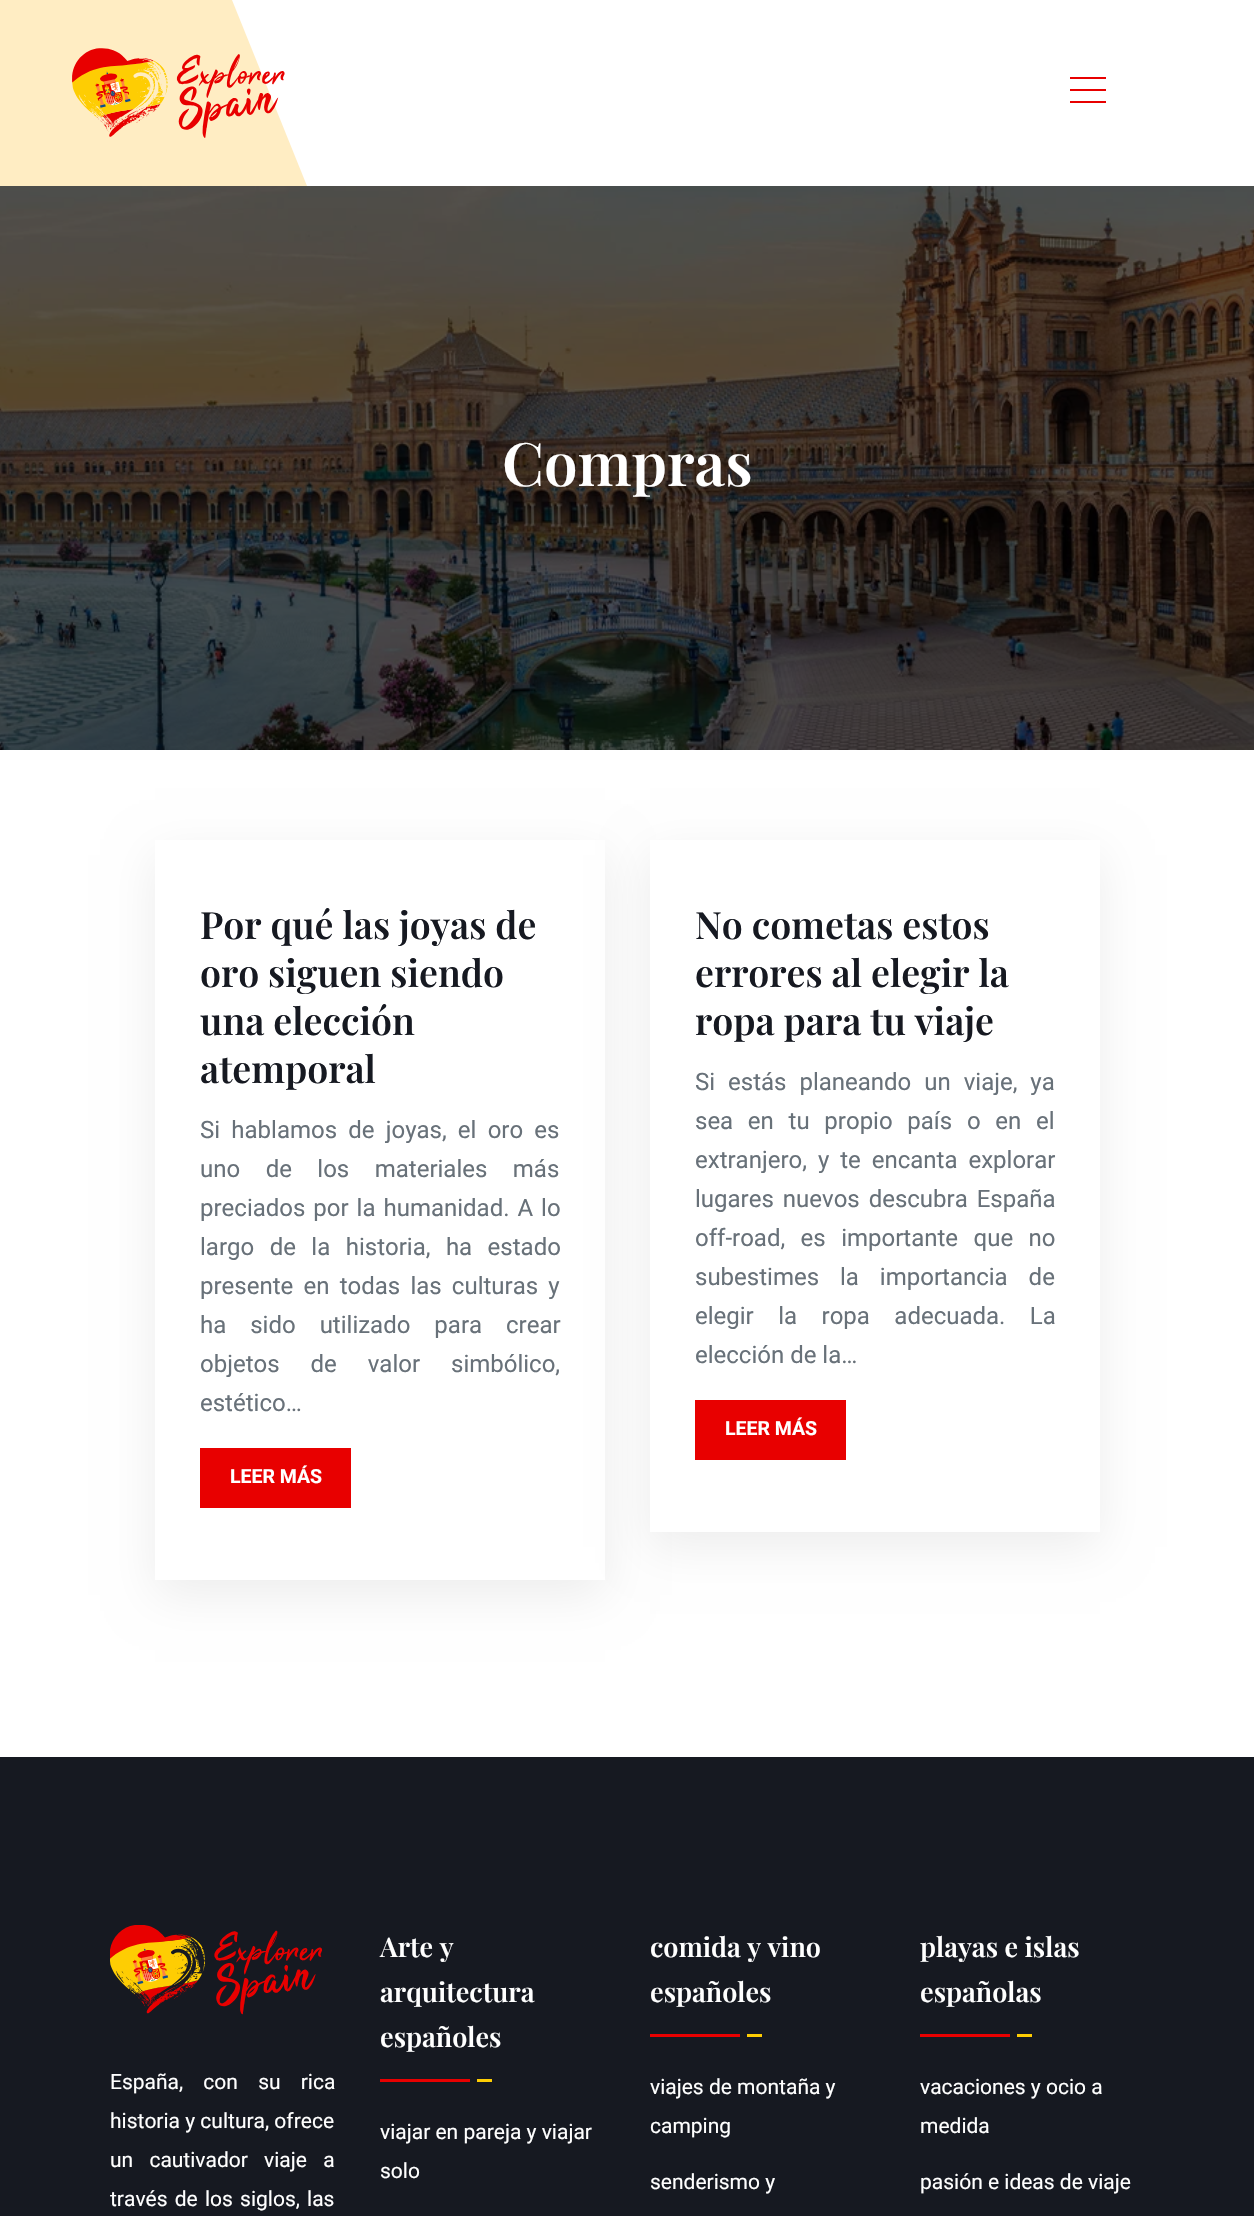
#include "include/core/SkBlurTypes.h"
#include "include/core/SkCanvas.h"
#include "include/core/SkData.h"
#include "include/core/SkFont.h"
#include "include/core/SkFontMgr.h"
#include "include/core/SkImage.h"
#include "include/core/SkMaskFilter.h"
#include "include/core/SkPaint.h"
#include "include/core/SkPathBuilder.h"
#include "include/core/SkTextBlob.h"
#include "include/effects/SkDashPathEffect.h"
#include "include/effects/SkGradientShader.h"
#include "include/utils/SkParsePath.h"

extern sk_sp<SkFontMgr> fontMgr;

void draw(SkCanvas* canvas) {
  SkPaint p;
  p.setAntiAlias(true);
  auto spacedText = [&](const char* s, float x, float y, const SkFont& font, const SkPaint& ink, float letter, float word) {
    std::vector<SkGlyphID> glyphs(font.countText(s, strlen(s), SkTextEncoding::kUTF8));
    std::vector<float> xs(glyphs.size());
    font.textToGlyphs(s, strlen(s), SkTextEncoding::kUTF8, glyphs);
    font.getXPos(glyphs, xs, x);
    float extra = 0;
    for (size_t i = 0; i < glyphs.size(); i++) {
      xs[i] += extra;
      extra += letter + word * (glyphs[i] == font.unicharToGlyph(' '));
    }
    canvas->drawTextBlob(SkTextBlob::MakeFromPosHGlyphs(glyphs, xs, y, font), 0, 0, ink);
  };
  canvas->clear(SK_ColorWHITE);
  p.setColor(SkColorSetRGB(255, 237, 195));
  canvas->drawPath(SkPathBuilder().moveTo(0, 0).lineTo(0, 186).lineTo(307, 186).lineTo(232, 0).close().detach(), p);
  canvas->drawImageRect(SkImages::DeferredFromEncodedData(SkData::MakeFromFileName("images/1.png")), SkRect::MakeLTRB(72, 48, 285, 138), SkSamplingOptions());
  p.setColor(SkColorSetRGB(232, 0, 0));
  canvas->drawRect(SkRect::MakeLTRB(1070, 77, 1106, 79), p);
  canvas->drawRect(SkRect::MakeLTRB(1070, 89, 1106, 91), p);
  canvas->drawRect(SkRect::MakeLTRB(1070, 101, 1106, 103), p);
  canvas->drawImageRect(SkImages::DeferredFromEncodedData(SkData::MakeFromFileName("images/2.png")), SkRect::MakeLTRB(0, 186, 1254, 750), SkSamplingOptions());
  p.setColor(SkColorSetARGB(18, 0, 0, 0));
  p.setMaskFilter(SkMaskFilter::MakeBlur(kNormal_SkBlurStyle, 22.5f));
  canvas->drawRect(SkRect::MakeLTRB(155, 855, 605, 1595), p);
  p.setMaskFilter(nullptr);
  p.setColor(SK_ColorWHITE);
  canvas->drawRect(SkRect::MakeLTRB(155, 840, 605, 1580), p);
  p.setColor(SkColorSetRGB(232, 0, 0));
  canvas->drawRect(SkRect::MakeLTRB(200, 1448, 351, 1508), p);
  p.setColor(SkColorSetARGB(18, 0, 0, 0));
  p.setMaskFilter(SkMaskFilter::MakeBlur(kNormal_SkBlurStyle, 22.5f));
  canvas->drawRect(SkRect::MakeLTRB(650, 855, 1100, 1547), p);
  p.setMaskFilter(nullptr);
  p.setColor(SK_ColorWHITE);
  canvas->drawRect(SkRect::MakeLTRB(650, 840, 1100, 1532), p);
  p.setColor(SkColorSetRGB(232, 0, 0));
  canvas->drawRect(SkRect::MakeLTRB(695, 1400, 846, 1460), p);
  p.setColor(SkColorSetRGB(22, 25, 33));
  canvas->drawRect(SkRect::MakeLTRB(0, 1757, 1254, 2216), p);
  canvas->drawImageRect(SkImages::DeferredFromEncodedData(SkData::MakeFromFileName("images/3.png")), SkRect::MakeLTRB(110, 1925, 322, 2015), SkSamplingOptions());
  p.setColor(SkColorSetRGB(232, 0, 0));
  canvas->drawRect(SkRect::MakeLTRB(380, 2079, 470, 2082), p);
  p.setColor(SkColorSetRGB(254, 205, 3));
  canvas->drawRect(SkRect::MakeLTRB(477, 2079, 492, 2082), p);
  p.setColor(SkColorSetRGB(232, 0, 0));
  canvas->drawRect(SkRect::MakeLTRB(650, 2034, 740, 2037), p);
  p.setColor(SkColorSetRGB(254, 205, 3));
  canvas->drawRect(SkRect::MakeLTRB(747, 2034, 762, 2037), p);
  p.setColor(SkColorSetRGB(232, 0, 0));
  canvas->drawRect(SkRect::MakeLTRB(920, 2034, 1010, 2037), p);
  p.setColor(SkColorSetRGB(254, 205, 3));
  canvas->drawRect(SkRect::MakeLTRB(1017, 2034, 1032, 2037), p);
  SkFont font1(fontMgr->matchFamilyStyle("Playfair Display", SkFontStyle(600, SkFontStyle::kNormal_Width, SkFontStyle::kUpright_Slant)), 60);
  font1.setSubpixel(true);
  p.setColor(SK_ColorWHITE);
  canvas->drawString("Compras", 502, 486, font1, p);
  SkFont font2(fontMgr->matchFamilyStyle("Playfair Display", SkFontStyle(600, SkFontStyle::kNormal_Width, SkFontStyle::kUpright_Slant)), 37.5f);
  font2.setSubpixel(true);
  p.setColor(SkColorSetRGB(22, 25, 33));
  canvas->drawString("Por qué las joyas de", 200, 939, font2, p);
  canvas->drawString("oro siguen siendo", 200, 987, font2, p);
  canvas->drawString("una elección", 200, 1035, font2, p);
  canvas->drawString("atemporal", 200, 1083, font2, p);
  SkFont font3(fontMgr->matchFamilyStyle("Roboto", SkFontStyle::Normal()), 24);
  font3.setSubpixel(true);
  p.setColor(SkColorSetRGB(104, 113, 121));
  spacedText("Si hablamos de joyas, el oro es", 200, 1138, font3, p, 0, 5.25f);
  spacedText("uno de los materiales más", 200, 1177, font3, p, 0, 19.5f);
  spacedText("preciados por la humanidad. A lo", 200, 1216, font3, p, 0, 2);
  spacedText("largo de la historia, ha estado", 200, 1255, font3, p, 0, 9.5f);
  spacedText("presente en todas las culturas y", 200, 1294, font3, p, 0, 4.25f);
  spacedText("ha sido utilizado para crear", 200, 1333, font3, p, 0, 18);
  spacedText("objetos de valor simbólico,", 200, 1372, font3, p, 0, 25);
  canvas->drawString("estético…", 200, 1411, font3, p);
  SkFont font4(fontMgr->matchFamilyStyle("Roboto", SkFontStyle::Bold()), 19.5f);
  font4.setSubpixel(true);
  p.setColor(SK_ColorWHITE);
  canvas->drawString("LEER MÁS", 230, 1483, font4, p);
  p.setColor(SkColorSetRGB(22, 25, 33));
  canvas->drawString("No cometas estos", 695, 939, font2, p);
  canvas->drawString("errores al elegir la", 695, 987, font2, p);
  canvas->drawString("ropa para tu viaje", 695, 1035, font2, p);
  p.setColor(SkColorSetRGB(104, 113, 121));
  spacedText("Si estás planeando un viaje, ya", 695, 1090, font3, p, 0, 7);
  spacedText("sea en tu propio país o en el", 695, 1129, font3, p, 0, 8.75f);
  spacedText("extranjero, y te encanta explorar", 695, 1168, font3, p, 0, 5);
  spacedText("lugares nuevos descubra España", 695, 1207, font3, p, 0, 3);
  spacedText("off-road, es importante que no", 695, 1246, font3, p, 0, 9.5f);
  spacedText("subestimes la importancia de", 695, 1285, font3, p, 0, 15);
  spacedText("elegir la ropa adecuada. La", 695, 1324, font3, p, 0, 18.5f);
  canvas->drawString("elección de la…", 695, 1363, font3, p);
  p.setColor(SK_ColorWHITE);
  canvas->drawString("LEER MÁS", 725, 1435, font4, p);
  SkFont font5(fontMgr->matchFamilyStyle("Roboto", SkFontStyle::Normal()), 21);
  font5.setSubpixel(true);
  spacedText("España, con su rica", 110, 2089, font5, p, 0, 15);
  canvas->drawString("historia y cultura, ofrece", 110, 2128, font5, p);
  spacedText("un cautivador viaje a", 110, 2167, font5, p, 0, 11);
  spacedText("través de los siglos, las", 110, 2206, font5, p, 0, 2);
  SkFont font6(fontMgr->matchFamilyStyle("Playfair Display", SkFontStyle(600, SkFontStyle::kNormal_Width, SkFontStyle::kUpright_Slant)), 27);
  font6.setSubpixel(true);
  canvas->drawString("Arte y", 380, 1957, font6, p);
  canvas->drawString("arquitectura", 380, 2002, font6, p);
  canvas->drawString("españoles", 380, 2047, font6, p);
  canvas->drawString("viajar en pareja y viajar", 380, 2139, font5, p);
  canvas->drawString("solo", 380, 2178, font5, p);
  canvas->drawString("comida y vino", 650, 1957, font6, p);
  canvas->drawString("españoles", 650, 2002, font6, p);
  canvas->drawString("viajes de montaña y", 650, 2094, font5, p);
  canvas->drawString("camping", 650, 2133, font5, p);
  canvas->drawString("senderismo y", 650, 2189, font5, p);
  canvas->drawString("playas e islas", 920, 1957, font6, p);
  canvas->drawString("españolas", 920, 2002, font6, p);
  canvas->drawString("vacaciones y ocio a", 920, 2094, font5, p);
  canvas->drawString("medida", 920, 2133, font5, p);
  canvas->drawString("pasión e ideas de viaje", 920, 2189, font5, p);
}
